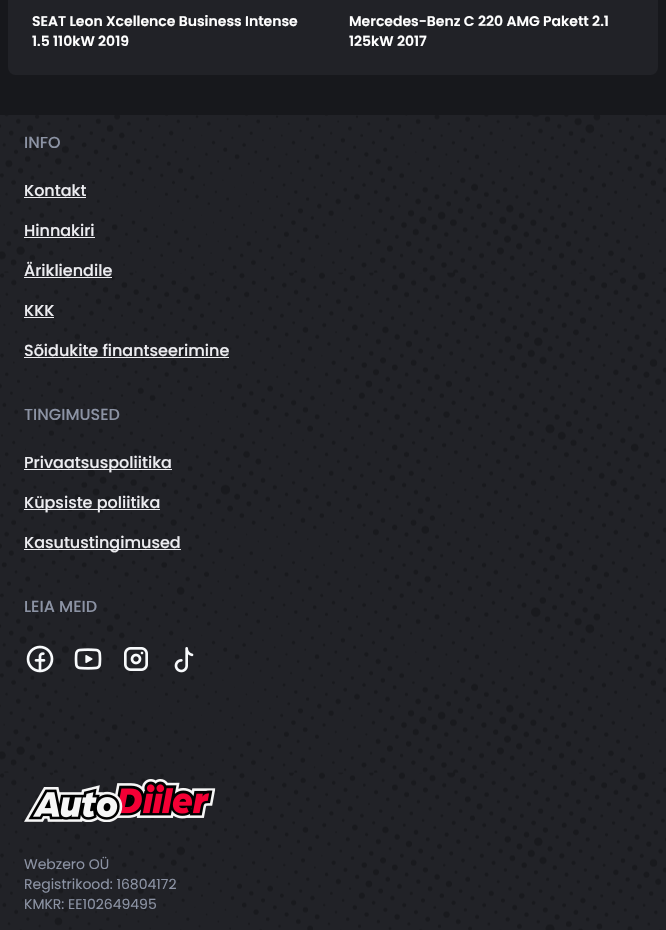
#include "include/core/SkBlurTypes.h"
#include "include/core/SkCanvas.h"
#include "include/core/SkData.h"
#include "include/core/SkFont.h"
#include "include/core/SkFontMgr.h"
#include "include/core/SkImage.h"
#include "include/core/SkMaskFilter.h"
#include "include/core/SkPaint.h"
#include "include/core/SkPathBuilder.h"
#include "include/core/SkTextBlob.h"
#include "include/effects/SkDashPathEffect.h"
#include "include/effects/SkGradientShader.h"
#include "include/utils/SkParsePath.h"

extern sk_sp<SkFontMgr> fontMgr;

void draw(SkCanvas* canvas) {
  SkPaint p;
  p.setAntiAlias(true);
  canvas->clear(SkColorSetRGB(23, 24, 28));
  p.setColor(SkColorSetRGB(33, 34, 39));
  canvas->drawRoundRect(SkRect::MakeLTRB(8, -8, 658, 75), 8, 8, p);
  canvas->drawRect(SkRect::MakeLTRB(0, 115, 666, 930), p);
  canvas->drawImageRect(SkImages::DeferredFromEncodedData(SkData::MakeFromFileName("images/1.png")), SkRect::MakeLTRB(0, 115, 666, 930), SkSamplingOptions());
  p.setColor(SkColorSetRGB(237, 237, 241));
  canvas->drawRect(SkRect::MakeLTRB(24, 197, 86, 198), p);
  canvas->drawRect(SkRect::MakeLTRB(24, 237, 95, 238), p);
  canvas->drawRect(SkRect::MakeLTRB(24, 277, 112, 278), p);
  canvas->drawRect(SkRect::MakeLTRB(24, 317, 54, 318), p);
  canvas->drawRect(SkRect::MakeLTRB(24, 357, 229, 358), p);
  canvas->drawRect(SkRect::MakeLTRB(24, 469, 172, 470), p);
  canvas->drawRect(SkRect::MakeLTRB(24, 509, 160, 510), p);
  canvas->drawRect(SkRect::MakeLTRB(24, 549, 181, 550), p);
  canvas->drawImageRect(SkImages::DeferredFromEncodedData(SkData::MakeFromFileName("images/2.png")), SkRect::MakeLTRB(26, 645, 54, 673), SkSamplingOptions());
  canvas->drawImageRect(SkImages::DeferredFromEncodedData(SkData::MakeFromFileName("images/3.png")), SkRect::MakeLTRB(74, 648, 102, 670), SkSamplingOptions());
  canvas->drawImageRect(SkImages::DeferredFromEncodedData(SkData::MakeFromFileName("images/4.png")), SkRect::MakeLTRB(124, 647, 148, 671), SkSamplingOptions());
  canvas->drawImageRect(SkImages::DeferredFromEncodedData(SkData::MakeFromFileName("images/5.png")), SkRect::MakeLTRB(174, 647, 194, 673), SkSamplingOptions());
  canvas->drawImageRect(SkImages::DeferredFromEncodedData(SkData::MakeFromFileName("images/6.png")), SkRect::MakeLTRB(24, 779, 216, 822), SkSamplingOptions());
  SkFont font1(fontMgr->matchFamilyStyle("Poppins", SkFontStyle(600, SkFontStyle::kNormal_Width, SkFontStyle::kUpright_Slant)), 14);
  font1.setSubpixel(true);
  p.setColor(SK_ColorWHITE);
  canvas->drawString("SEAT Leon Xcellence Business Intense", 32, 26, font1, p);
  canvas->drawString("1.5 110kW 2019", 32, 46, font1, p);
  canvas->drawString("Mercedes-Benz C 220 AMG Pakett 2.1", 349, 26, font1, p);
  canvas->drawString("125kW 2017", 349, 46, font1, p);
  SkFont font2(fontMgr->matchFamilyStyle("Poppins", SkFontStyle(500, SkFontStyle::kNormal_Width, SkFontStyle::kUpright_Slant)), 16);
  font2.setSubpixel(true);
  p.setColor(SkColorSetRGB(140, 147, 164));
  canvas->drawString("INFO", 24, 148, font2, p);
  p.setColor(SkColorSetRGB(237, 237, 241));
  canvas->drawString("Kontakt", 24, 196, font2, p);
  canvas->drawString("Hinnakiri", 24, 236, font2, p);
  canvas->drawString("Ärikliendile", 24, 276, font2, p);
  canvas->drawString("KKK", 24, 316, font2, p);
  canvas->drawString("Sõidukite finantseerimine", 24, 356, font2, p);
  p.setColor(SkColorSetRGB(140, 147, 164));
  canvas->drawString("TINGIMUSED", 24, 420, font2, p);
  p.setColor(SkColorSetRGB(237, 237, 241));
  canvas->drawString("Privaatsuspoliitika", 24, 468, font2, p);
  canvas->drawString("Küpsiste poliitika", 24, 508, font2, p);
  canvas->drawString("Kasutustingimused", 24, 548, font2, p);
  p.setColor(SkColorSetRGB(140, 147, 164));
  canvas->drawString("LEIA MEID", 24, 612, font2, p);
  SkFont font3(fontMgr->matchFamilyStyle("Poppins", SkFontStyle::Normal()), 14);
  font3.setSubpixel(true);
  canvas->drawString("Webzero OÜ", 24, 869, font3, p);
  canvas->drawString("Registrikood: 16804172", 24, 889, font3, p);
  canvas->drawString("KMKR: EE102649495", 24, 909, font3, p);
}
